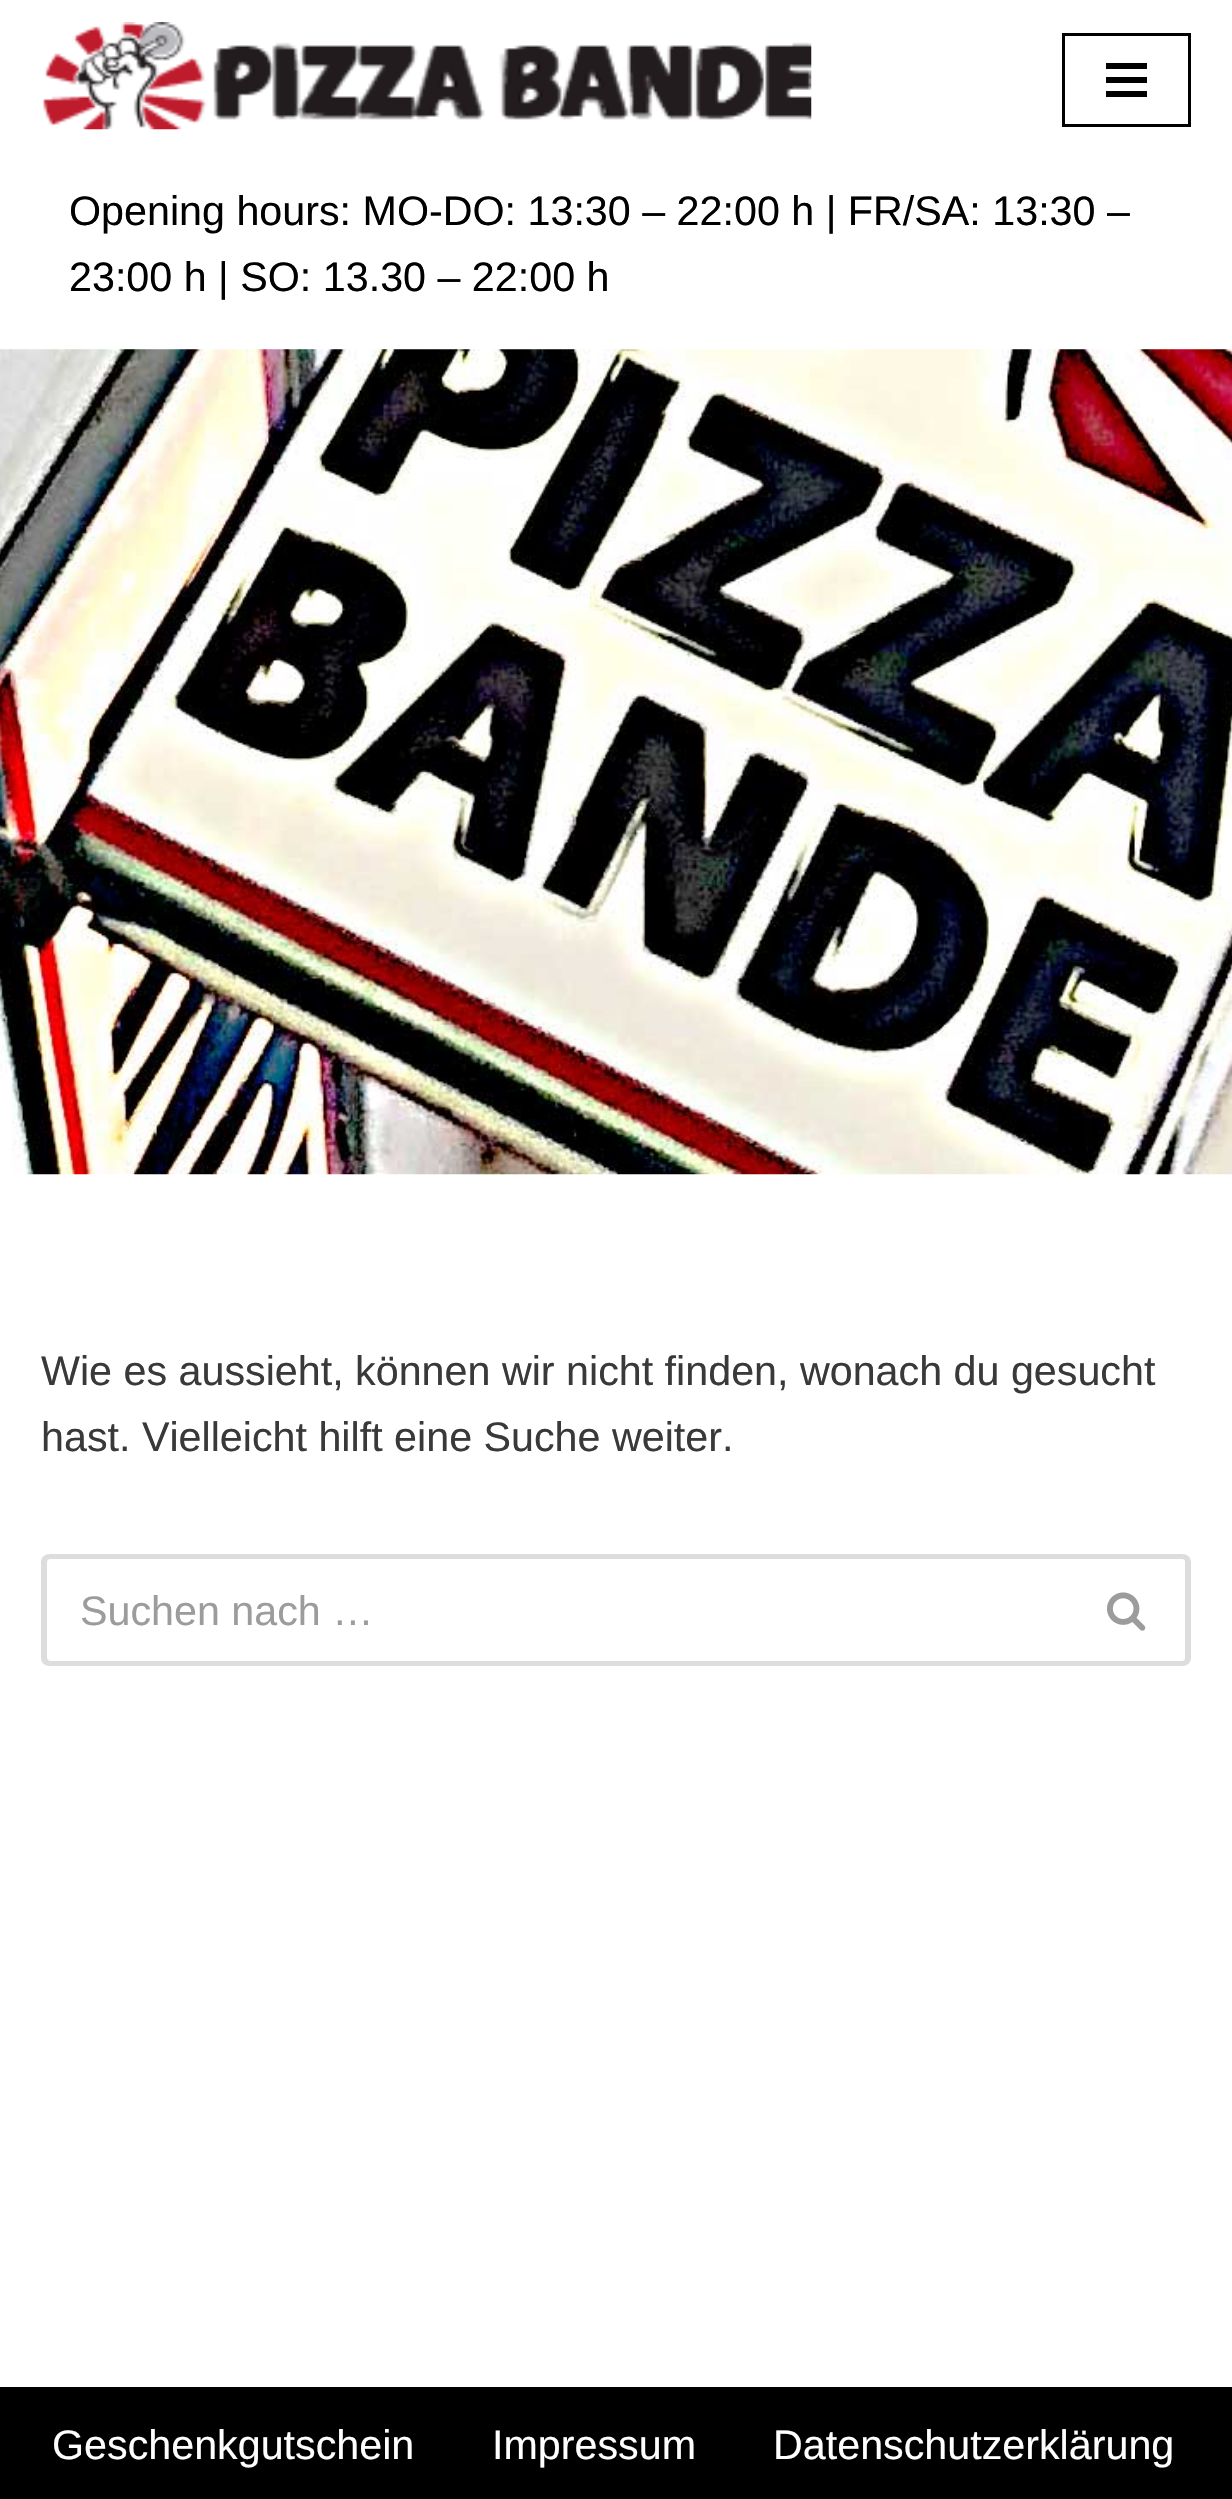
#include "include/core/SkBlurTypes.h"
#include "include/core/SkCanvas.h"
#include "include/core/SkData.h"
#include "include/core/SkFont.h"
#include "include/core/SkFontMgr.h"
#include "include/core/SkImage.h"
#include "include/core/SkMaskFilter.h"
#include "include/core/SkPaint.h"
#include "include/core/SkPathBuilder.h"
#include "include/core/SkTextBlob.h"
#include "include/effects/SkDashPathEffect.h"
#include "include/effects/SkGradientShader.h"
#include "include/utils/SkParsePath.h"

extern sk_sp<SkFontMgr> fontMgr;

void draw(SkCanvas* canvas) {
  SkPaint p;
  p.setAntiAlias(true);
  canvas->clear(SK_ColorWHITE);
  canvas->drawImageRect(SkImages::DeferredFromEncodedData(SkData::MakeFromFileName("images/1.png")), SkRect::MakeLTRB(43, 22, 812, 130), SkSamplingOptions());
  p.setStyle(SkPaint::kStroke_Style);
  p.setStrokeWidth(3);
  p.setColor(SK_ColorBLACK);
  canvas->drawRect(SkRect::MakeLTRB(1063.5f, 34.5f, 1189.5f, 125.5f), p);
  p.setStyle(SkPaint::kFill_Style);
  canvas->drawRect(SkRect::MakeLTRB(1106, 63, 1147, 69), p);
  canvas->drawRect(SkRect::MakeLTRB(1106, 77, 1147, 83), p);
  canvas->drawRect(SkRect::MakeLTRB(1106, 91, 1147, 97), p);
  canvas->drawImageRect(SkImages::DeferredFromEncodedData(SkData::MakeFromFileName("images/2.png")), SkRect::MakeLTRB(0, 349, 1232, 1175), SkSamplingOptions());
  p.setColor(SkColorSetRGB(221, 221, 221));
  canvas->drawPath(SkPathBuilder(SkPathFillType::kEvenOdd).moveTo(50, 1554).lineTo(1067, 1554).lineTo(1067, 1666).lineTo(50, 1666).cubicTo(45, 1666, 41, 1663, 41, 1658).lineTo(41, 1562).cubicTo(41, 1557, 45, 1554, 50, 1554).close().moveTo(50, 1559).lineTo(1067, 1559).lineTo(1067, 1661).lineTo(50, 1661).lineTo(48, 1660).lineTo(47, 1658).lineTo(47, 1562).cubicTo(47, 1561, 48, 1559, 50, 1559).close().detach(), p);
  canvas->drawPath(SkPathBuilder(SkPathFillType::kEvenOdd).moveTo(1067, 1554).lineTo(1182, 1554).cubicTo(1187, 1554, 1191, 1557, 1191, 1562).lineTo(1191, 1658).cubicTo(1191, 1663, 1187, 1666, 1182, 1666).lineTo(1067, 1666).close().moveTo(1067, 1559).lineTo(1182, 1559).cubicTo(1184, 1559, 1185, 1560, 1185, 1562).lineTo(1185, 1658).cubicTo(1185, 1660, 1184, 1661, 1182, 1661).lineTo(1067, 1661).close().detach(), p);
  canvas->drawImageRect(SkImages::DeferredFromEncodedData(SkData::MakeFromFileName("images/3.png")), SkRect::MakeLTRB(1107, 1592, 1146, 1631), SkSamplingOptions());
  p.setColor(SK_ColorBLACK);
  canvas->drawRect(SkRect::MakeLTRB(0, 2387, 1232, 2499), p);
  SkFont font1(fontMgr->matchFamilyStyle("Liberation Sans", SkFontStyle::Normal()), 41.25f);
  font1.setSubpixel(true);
  canvas->drawString("Opening hours: MO-DO: 13:30 – 22:00 h | FR/SA: 13:30 –", 69, 225, font1, p);
  canvas->drawString("23:00 h | SO: 13.30 – 22:00 h", 69, 291, font1, p);
  p.setColor(SkColorSetRGB(57, 57, 57));
  canvas->drawString("Wie es aussieht, können wir nicht finden, wonach du gesucht", 41, 1385, font1, p);
  canvas->drawString("hast. Vielleicht hilft eine Suche weiter.", 41, 1451, font1, p);
  p.setColor(SkColorSetRGB(156, 156, 156));
  canvas->drawString("Suchen nach …", 80, 1625, font1, p);
  p.setColor(SK_ColorWHITE);
  canvas->drawString("Geschenkgutschein", 52, 2459, font1, p);
  canvas->drawString("Impressum", 492, 2459, font1, p);
  canvas->drawString("Datenschutzerklärung", 773, 2459, font1, p);
}
